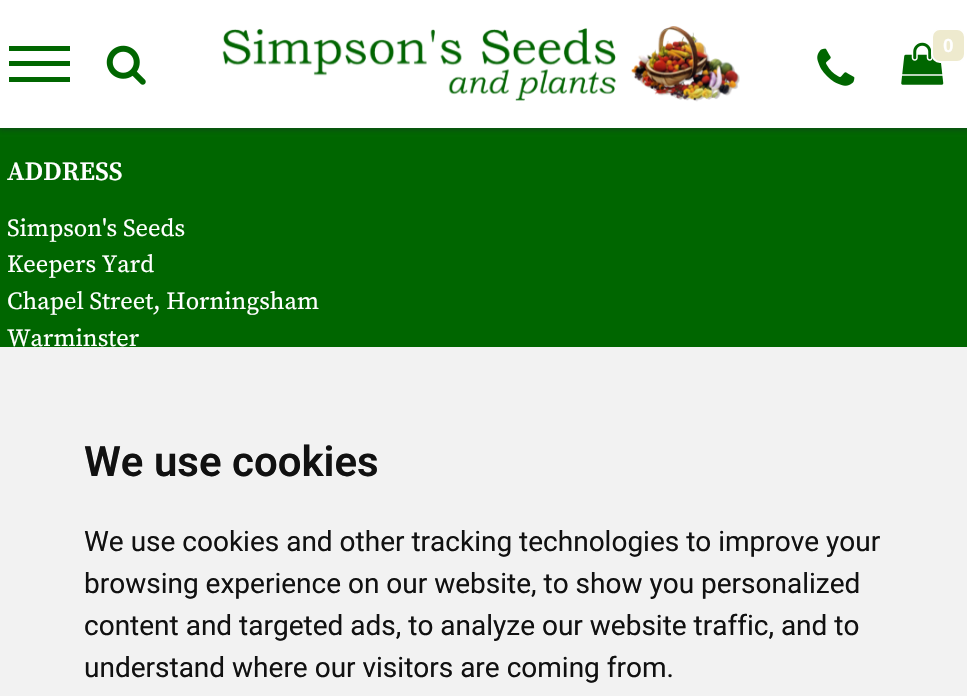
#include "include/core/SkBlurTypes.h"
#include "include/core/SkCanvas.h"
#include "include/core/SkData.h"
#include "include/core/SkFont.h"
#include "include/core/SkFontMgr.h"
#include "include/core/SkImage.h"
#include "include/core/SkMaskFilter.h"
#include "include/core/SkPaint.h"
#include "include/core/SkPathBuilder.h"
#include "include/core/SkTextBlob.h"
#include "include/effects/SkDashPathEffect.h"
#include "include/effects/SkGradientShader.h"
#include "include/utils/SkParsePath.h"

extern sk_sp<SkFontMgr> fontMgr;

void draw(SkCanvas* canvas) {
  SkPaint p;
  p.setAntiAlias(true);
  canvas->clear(SkColorSetRGB(0, 102, 0));
  p.setColor(SkColorSetARGB(79, 28, 41, 47));
  p.setMaskFilter(SkMaskFilter::MakeBlur(kNormal_SkBlurStyle, 2));
  canvas->drawRect(SkRect::MakeLTRB(0, 4, 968, 131), p);
  p.setMaskFilter(nullptr);
  p.setColor(SK_ColorWHITE);
  canvas->drawRect(SkRect::MakeLTRB(0, 0, 967, 128), p);
  p.setColor(SkColorSetRGB(0, 102, 0));
  canvas->drawRect(SkRect::MakeLTRB(9, 46, 70, 51), p);
  canvas->drawRect(SkRect::MakeLTRB(9, 61, 70, 66), p);
  canvas->drawRect(SkRect::MakeLTRB(9, 77, 70, 82), p);
  canvas->drawImageRect(SkImages::DeferredFromEncodedData(SkData::MakeFromFileName("images/1.png")), SkRect::MakeLTRB(106, 45, 146, 85), SkSamplingOptions());
  canvas->drawImageRect(SkImages::DeferredFromEncodedData(SkData::MakeFromFileName("images/2.png")), SkRect::MakeLTRB(222, 26, 740, 102), SkSamplingOptions());
  canvas->drawImageRect(SkImages::DeferredFromEncodedData(SkData::MakeFromFileName("images/3.png")), SkRect::MakeLTRB(901, 42, 944, 85), SkSamplingOptions());
  p.setColor(SkColorSetRGB(238, 234, 206));
  canvas->drawRoundRect(SkRect::MakeLTRB(932, 29, 965, 62), 8, 8, p);
  p.setStyle(SkPaint::kStroke_Style);
  p.setStrokeWidth(2);
  p.setColor(SK_ColorWHITE);
  canvas->drawRoundRect(SkRect::MakeLTRB(932, 29, 965, 62), 8, 8, p);
  canvas->drawImageRect(SkImages::DeferredFromEncodedData(SkData::MakeFromFileName("images/4.png")), SkRect::MakeLTRB(817, 48, 855, 86), SkSamplingOptions());
  p.setStyle(SkPaint::kFill_Style);
  p.setColor(SkColorSetRGB(242, 242, 242));
  canvas->drawRect(SkRect::MakeLTRB(0, 347, 967, 696), p);
  SkFont font1(fontMgr->matchFamilyStyle("Liberation Sans", SkFontStyle::Bold()), 19);
  font1.setSubpixel(true);
  p.setColor(SK_ColorWHITE);
  canvas->drawString("0", 943, 52, font1, p);
  SkFont font2(fontMgr->matchFamilyStyle("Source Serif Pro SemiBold", SkFontStyle(600, SkFontStyle::kNormal_Width, SkFontStyle::kUpright_Slant)), 26.25f);
  font2.setSubpixel(true);
  canvas->drawString("ADDRESS", 7, 180, font2, p);
  SkFont font3(fontMgr->matchFamilyStyle("Source Serif Pro", SkFontStyle::Normal()), 24.5f);
  font3.setSubpixel(true);
  canvas->drawString("Simpson's Seeds", 7, 236, font3, p);
  canvas->drawString("Keepers Yard", 7, 272, font3, p);
  canvas->drawString("Chapel Street, Horningsham", 7, 309, font3, p);
  canvas->drawString("Warminster", 7, 346, font3, p);
  SkFont font4(fontMgr->matchFamilyStyle("Roboto", SkFontStyle(600, SkFontStyle::kNormal_Width, SkFontStyle::kUpright_Slant)), 42);
  font4.setSubpixel(true);
  p.setColor(SkColorSetRGB(17, 17, 17));
  canvas->drawString("We use cookies", 84, 476, font4, p);
  SkFont font5(fontMgr->matchFamilyStyle("Roboto", SkFontStyle::Normal()), 28);
  font5.setSubpixel(true);
  canvas->drawString("We use cookies and other tracking technologies to improve your", 84, 551, font5, p);
  canvas->drawString("browsing experience on our website, to show you personalized", 84, 593, font5, p);
  canvas->drawString("content and targeted ads, to analyze our website traffic, and to", 84, 635, font5, p);
  canvas->drawString("understand where our visitors are coming from.", 84, 677, font5, p);
}
